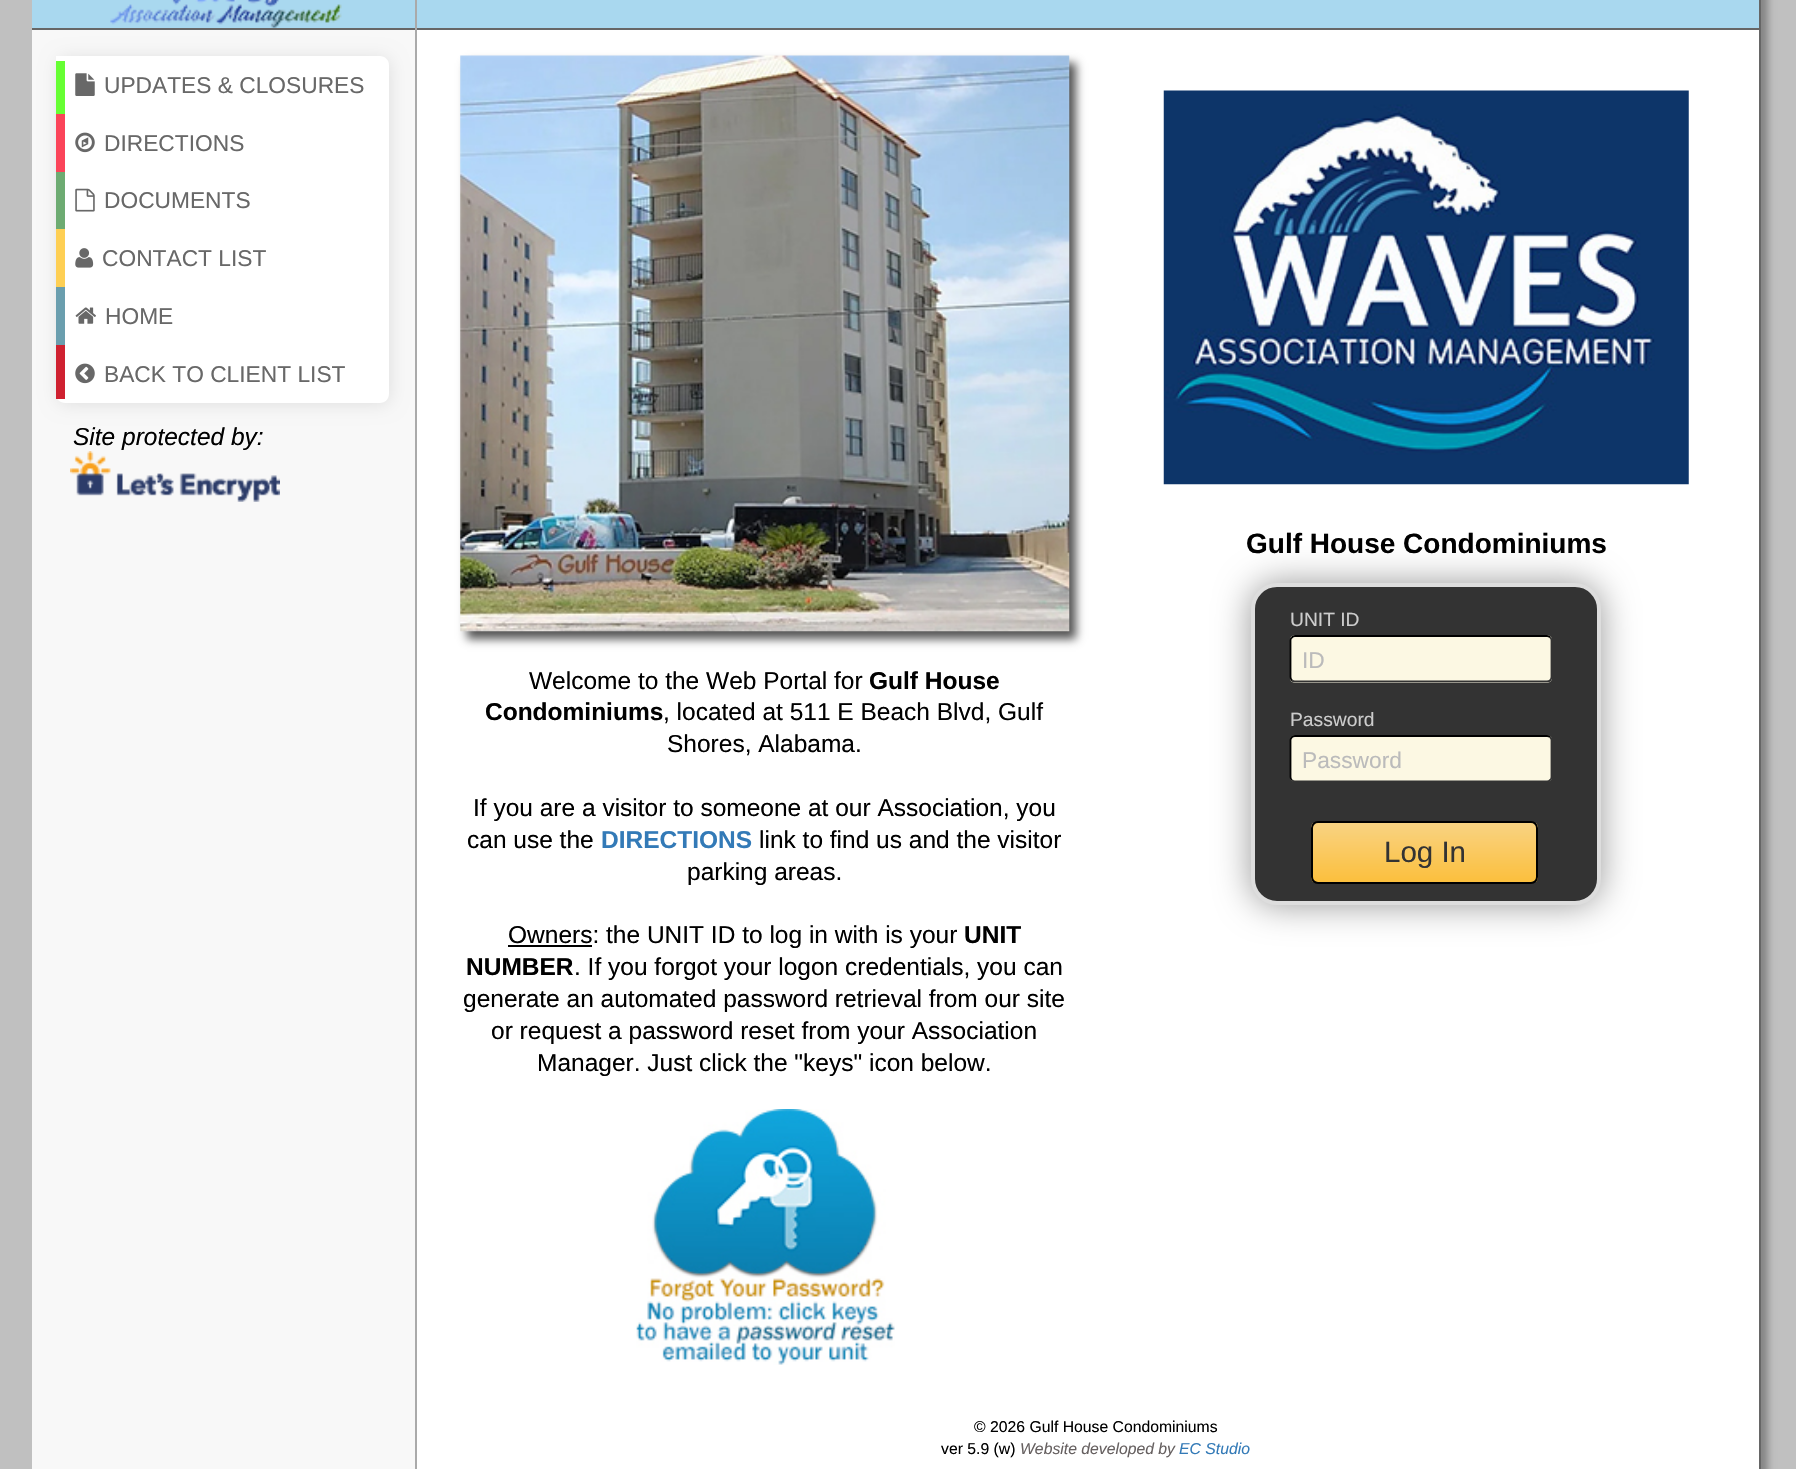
#include "include/core/SkBlurTypes.h"
#include "include/core/SkCanvas.h"
#include "include/core/SkData.h"
#include "include/core/SkFont.h"
#include "include/core/SkFontMgr.h"
#include "include/core/SkImage.h"
#include "include/core/SkMaskFilter.h"
#include "include/core/SkPaint.h"
#include "include/core/SkPathBuilder.h"
#include "include/core/SkTextBlob.h"
#include "include/effects/SkDashPathEffect.h"
#include "include/effects/SkGradientShader.h"
#include "include/utils/SkParsePath.h"

extern sk_sp<SkFontMgr> fontMgr;

void draw(SkCanvas* canvas) {
  SkPaint p;
  p.setAntiAlias(true);
  canvas->clear(SkColorSetRGB(192, 192, 192));
  p.setColor(SkColorSetARGB(77, 0, 0, 0));
  p.setMaskFilter(SkMaskFilter::MakeBlur(kNormal_SkBlurStyle, 3.5f));
  canvas->drawRect(SkRect::MakeLTRB(424, -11, 1768, 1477), p);
  p.setMaskFilter(nullptr);
  p.setColor(SkColorSetRGB(248, 248, 248));
  canvas->drawRect(SkRect::MakeLTRB(32, 30, 415, 1469), p);
  p.setColor(SkColorSetRGB(170, 170, 170));
  canvas->drawRect(SkRect::MakeLTRB(415, 0, 417, 1469), p);
  p.setColor(SkColorSetRGB(169, 216, 239));
  canvas->drawRect(SkRect::MakeLTRB(32, 0, 415, 28), p);
  p.setColor(SkColorSetRGB(102, 102, 102));
  canvas->drawRect(SkRect::MakeLTRB(32, 28, 415, 30), p);
  canvas->drawImageRect(SkImages::DeferredFromEncodedData(SkData::MakeFromFileName("images/1.png")), SkRect::MakeLTRB(110, 0, 342, 28), SkSamplingOptions());
  p.setColor(SK_ColorWHITE);
  canvas->drawRect(SkRect::MakeLTRB(417, 30, 1759, 1469), p);
  p.setColor(SkColorSetARGB(26, 0, 0, 0));
  p.setMaskFilter(SkMaskFilter::MakeBlur(kNormal_SkBlurStyle, 9));
  canvas->drawRoundRect(SkRect::MakeLTRB(58, 58, 390, 404), 9, 9, p);
  p.setMaskFilter(nullptr);
  p.setColor(SK_ColorWHITE);
  canvas->drawPath(SkPathBuilder().moveTo(56, 56).lineTo(380, 56).cubicTo(385, 56, 389, 60, 389, 65).lineTo(389, 394).cubicTo(389, 399, 385, 403, 380, 403).lineTo(65, 403).cubicTo(60, 403, 56, 399, 56, 394).close().detach(), p);
  p.setColor(SkColorSetRGB(102, 255, 51));
  canvas->drawRect(SkRect::MakeLTRB(56, 61, 65, 114), p);
  canvas->drawImageRect(SkImages::DeferredFromEncodedData(SkData::MakeFromFileName("images/2.png")), SkRect::MakeLTRB(75, 73, 95, 96), SkSamplingOptions());
  p.setColor(SkColorSetRGB(251, 68, 89));
  canvas->drawRect(SkRect::MakeLTRB(56, 114, 65, 172), p);
  canvas->drawImageRect(SkImages::DeferredFromEncodedData(SkData::MakeFromFileName("images/3.png")), SkRect::MakeLTRB(75, 132, 95, 153), SkSamplingOptions());
  p.setColor(SkColorSetRGB(109, 171, 114));
  canvas->drawRect(SkRect::MakeLTRB(56, 172, 65, 229), p);
  canvas->drawImageRect(SkImages::DeferredFromEncodedData(SkData::MakeFromFileName("images/4.png")), SkRect::MakeLTRB(75, 188, 95, 212), SkSamplingOptions());
  p.setColor(SkColorSetRGB(254, 207, 84));
  canvas->drawRect(SkRect::MakeLTRB(56, 229, 65, 287), p);
  canvas->drawImageRect(SkImages::DeferredFromEncodedData(SkData::MakeFromFileName("images/5.png")), SkRect::MakeLTRB(75, 248, 94, 268), SkSamplingOptions());
  p.setColor(SkColorSetRGB(106, 158, 174));
  canvas->drawRect(SkRect::MakeLTRB(56, 287, 65, 345), p);
  canvas->drawImageRect(SkImages::DeferredFromEncodedData(SkData::MakeFromFileName("images/6.png")), SkRect::MakeLTRB(75, 307, 96, 324), SkSamplingOptions());
  p.setColor(SkColorSetRGB(207, 33, 48));
  canvas->drawRect(SkRect::MakeLTRB(56, 345, 65, 399), p);
  canvas->drawImageRect(SkImages::DeferredFromEncodedData(SkData::MakeFromFileName("images/7.png")), SkRect::MakeLTRB(75, 363, 95, 384), SkSamplingOptions());
  canvas->drawImageRect(SkImages::DeferredFromEncodedData(SkData::MakeFromFileName("images/8.png")), SkRect::MakeLTRB(70, 451, 280, 502), SkSamplingOptions());
  p.setColor(SkColorSetRGB(102, 102, 102));
  canvas->drawRect(SkRect::MakeLTRB(1759, 0, 1761, 1469), p);
  p.setColor(SkColorSetRGB(169, 216, 239));
  canvas->drawRect(SkRect::MakeLTRB(417, 0, 1759, 28), p);
  p.setColor(SkColorSetRGB(102, 102, 102));
  canvas->drawRect(SkRect::MakeLTRB(417, 28, 1759, 30), p);
  p.setColor(SkColorSetRGB(85, 85, 85));
  p.setMaskFilter(SkMaskFilter::MakeBlur(kNormal_SkBlurStyle, 4.5f));
  canvas->drawRect(SkRect::MakeLTRB(467, 63, 1076, 639), p);
  p.setMaskFilter(nullptr);
  canvas->drawImageRect(SkImages::DeferredFromEncodedData(SkData::MakeFromFileName("images/9.png")), SkRect::MakeLTRB(460, 55, 1070, 632), SkSamplingOptions());
  p.setColor(SK_ColorBLACK);
  canvas->drawRect(SkRect::MakeLTRB(508, 945, 592, 947), p);
  canvas->drawImageRect(SkImages::DeferredFromEncodedData(SkData::MakeFromFileName("images/10.png")), SkRect::MakeLTRB(636, 1109, 895, 1365), SkSamplingOptions());
  canvas->drawImageRect(SkImages::DeferredFromEncodedData(SkData::MakeFromFileName("images/11.png")), SkRect::MakeLTRB(1163, 90, 1689, 485), SkSamplingOptions());
  p.setColor(SkColorSetRGB(153, 153, 153));
  p.setMaskFilter(SkMaskFilter::MakeBlur(kNormal_SkBlurStyle, 17.5f));
  canvas->drawRoundRect(SkRect::MakeLTRB(1251, 583, 1601, 905), 26, 26, p);
  p.setMaskFilter(nullptr);
  p.setColor(SkColorSetRGB(51, 51, 51));
  canvas->drawRoundRect(SkRect::MakeLTRB(1253, 585, 1599, 903), 24, 24, p);
  p.setStyle(SkPaint::kStroke_Style);
  p.setStrokeWidth(4);
  p.setColor(SkColorSetRGB(221, 221, 221));
  canvas->drawRoundRect(SkRect::MakeLTRB(1253, 585, 1599, 903), 24, 24, p);
  p.setStyle(SkPaint::kFill_Style);
  p.setColor(SkColorSetRGB(252, 248, 227));
  canvas->drawRoundRect(SkRect::MakeLTRB(1290, 635, 1552, 683), 5, 5, p);
  p.setStyle(SkPaint::kStroke_Style);
  p.setStrokeWidth(1.8f);
  p.setColor(SkColorSetRGB(51, 51, 51));
  canvas->drawPath(SkPathBuilder().moveTo(1550, 637.5f).cubicTo(1551, 638, 1551.5f, 639.5f, 1551.5f, 640.5f).lineTo(1551.5f, 677).cubicTo(1551.5f, 678.5f, 1551, 679.5f, 1550, 680.5f).cubicTo(1549.5f, 681, 1548, 681.5f, 1547, 681.5f).lineTo(1295, 681.5f).cubicTo(1294, 681.5f, 1292.5f, 681, 1292, 680.5f).detach(), p);
  p.setColor(SK_ColorBLACK);
  canvas->drawPath(SkPathBuilder().moveTo(1292, 680.5f).cubicTo(1291, 679.5f, 1290.5f, 678.5f, 1290.5f, 677).lineTo(1290.5f, 640.5f).cubicTo(1290.5f, 639.5f, 1291, 638, 1292, 637.5f).cubicTo(1292.5f, 636.5f, 1294, 636, 1295, 636).lineTo(1547, 636).cubicTo(1548, 636, 1549.5f, 636.5f, 1550, 637.5f).detach(), p);
  p.setStyle(SkPaint::kFill_Style);
  p.setColor(SkColorSetRGB(252, 248, 227));
  canvas->drawRoundRect(SkRect::MakeLTRB(1290, 735, 1552, 782), 5, 5, p);
  p.setStyle(SkPaint::kStroke_Style);
  p.setColor(SkColorSetRGB(51, 51, 51));
  canvas->drawPath(SkPathBuilder().moveTo(1550, 737).cubicTo(1551, 738, 1551.5f, 739, 1551.5f, 740).lineTo(1551.5f, 777).cubicTo(1551.5f, 778, 1551, 779.5f, 1550, 780).cubicTo(1549.5f, 781, 1548, 781.5f, 1547, 781.5f).lineTo(1295, 781.5f).cubicTo(1294, 781.5f, 1292.5f, 781, 1292, 780).detach(), p);
  p.setColor(SK_ColorBLACK);
  canvas->drawPath(SkPathBuilder().moveTo(1292, 780).cubicTo(1291, 779.5f, 1290.5f, 778, 1290.5f, 777).lineTo(1290.5f, 740).cubicTo(1290.5f, 739, 1291, 738, 1292, 737).cubicTo(1292.5f, 736.5f, 1294, 736, 1295, 736).lineTo(1547, 736).cubicTo(1548, 736, 1549.5f, 736.5f, 1550, 737).detach(), p);
  canvas->save();
  canvas->clipPath(SkPathBuilder().moveTo(1318, 821).lineTo(1531, 821).cubicTo(1535, 821, 1538, 824, 1538, 828).lineTo(1538, 877).cubicTo(1538, 881, 1535, 884, 1531, 884).lineTo(1318, 884).cubicTo(1314, 884, 1311, 881, 1311, 877).lineTo(1311, 828).cubicTo(1311, 824, 1314, 821, 1318, 821).close().detach(), true);
  p.setStyle(SkPaint::kFill_Style);
  {
    const SkColor colors[] = {SkColorSetRGB(249, 211, 130), SkColorSetRGB(251, 191, 61)};
    const float stops[] = {0, 1};
    const SkPoint ends[] = {{1313, 823}, {1313, 882}};
    p.setShader(SkGradientShader::MakeLinear(ends, colors, stops, 2, SkTileMode::kClamp));
    p.setAlpha(255);
  }
  canvas->drawRect(SkRect::MakeLTRB(1311, 823, 1538, 882), p);
  canvas->restore();
  p.setStyle(SkPaint::kStroke_Style);
  p.setStrokeWidth(2);
  p.setShader(nullptr);
  p.setColor(SK_ColorBLACK);
  canvas->drawRoundRect(SkRect::MakeLTRB(1312, 822, 1537, 883), 6, 6, p);
  SkFont font1(fontMgr->matchFamilyStyle("Liberation Sans", SkFontStyle::Normal()), 22.75f);
  font1.setSubpixel(true);
  p.setStyle(SkPaint::kFill_Style);
  p.setColor(SkColorSetRGB(104, 104, 104));
  canvas->drawString("UPDATES & CLOSURES", 104, 93, font1, p);
  canvas->drawString("DIRECTIONS", 104, 151, font1, p);
  canvas->drawString("DOCUMENTS", 104, 208, font1, p);
  canvas->drawString("CONTACT LIST", 102, 266, font1, p);
  canvas->drawString("HOME", 105, 324, font1, p);
  canvas->drawString("BACK TO CLIENT LIST", 104, 382, font1, p);
  SkFont font2(fontMgr->matchFamilyStyle("Liberation Sans", SkFontStyle::Italic()), 24.5f);
  font2.setSubpixel(true);
  p.setColor(SK_ColorBLACK);
  canvas->drawString("Site protected by:", 73, 445, font2, p);
  SkFont font3(fontMgr->matchFamilyStyle("Liberation Sans", SkFontStyle::Normal()), 24.5f);
  font3.setSubpixel(true);
  canvas->drawString("Welcome to the Web Portal for", 529, 689, font3, p);
  SkFont font4(fontMgr->matchFamilyStyle("Liberation Sans", SkFontStyle::Bold()), 24.5f);
  font4.setSubpixel(true);
  canvas->drawString("Gulf House", 869, 689, font4, p);
  canvas->drawString("Condominiums", 485, 720, font4, p);
  canvas->drawString(", located at 511 E Beach Blvd, Gulf", 663, 720, font3, p);
  canvas->drawString("Shores, Alabama.", 667, 752, font3, p);
  canvas->drawString("If you are a visitor to someone at our Association, you", 473, 816, font3, p);
  canvas->drawString("can use the", 467, 848, font3, p);
  p.setColor(SkColorSetRGB(51, 122, 183));
  canvas->drawString("DIRECTIONS", 601, 848, font4, p);
  p.setColor(SK_ColorBLACK);
  canvas->drawString("link to find us and the visitor", 759, 848, font3, p);
  canvas->drawString("parking areas.", 687, 880, font3, p);
  canvas->drawString("Owners: the UNIT ID to log in with is your", 508, 943, font3, p);
  canvas->drawString("UNIT", 964, 943, font4, p);
  canvas->drawString("NUMBER", 466, 975, font4, p);
  canvas->drawString(". If you forgot your logon credentials, you can", 574, 975, font3, p);
  canvas->drawString("generate an automated password retrieval from our site", 463, 1007, font3, p);
  canvas->drawString("or request a password reset from your Association", 491, 1039, font3, p);
  canvas->drawString("Manager. Just click the \"keys\" icon below.", 537, 1071, font3, p);
  SkFont font5(fontMgr->matchFamilyStyle("Liberation Sans", SkFontStyle::Bold()), 28);
  font5.setSubpixel(true);
  canvas->drawString("Gulf House Condominiums", 1246, 553, font5, p);
  SkFont font6(fontMgr->matchFamilyStyle("Liberation Sans", SkFontStyle::Normal()), 19.25f);
  font6.setSubpixel(true);
  p.setColor(SkColorSetRGB(204, 204, 204));
  canvas->drawString("UNIT ID", 1290, 626, font6, p);
  p.setColor(SkColorSetRGB(187, 187, 187));
  canvas->drawString("ID", 1302, 668, font1, p);
  p.setColor(SkColorSetRGB(204, 204, 204));
  canvas->drawString("Password", 1290, 726, font6, p);
  p.setColor(SkColorSetRGB(187, 187, 187));
  canvas->drawString("Password", 1302, 768, font1, p);
  SkFont font7(fontMgr->matchFamilyStyle("Liberation Sans", SkFontStyle::Normal()), 29.5f);
  font7.setSubpixel(true);
  p.setColor(SkColorSetRGB(51, 51, 51));
  canvas->drawString("Log In", 1384, 862, font7, p);
  SkFont font8(fontMgr->matchFamilyStyle("Liberation Sans", SkFontStyle::Normal()), 15.75f);
  font8.setSubpixel(true);
  p.setColor(SK_ColorBLACK);
  canvas->drawString("© 2026 Gulf House Condominiums", 974, 1432, font8, p);
  canvas->drawString("ver 5.9 (w)", 941, 1454, font8, p);
  SkFont font9(fontMgr->matchFamilyStyle("Liberation Sans", SkFontStyle::Italic()), 15.75f);
  font9.setSubpixel(true);
  p.setColor(SkColorSetRGB(102, 96, 96));
  canvas->drawString("Website developed by", 1020, 1454, font9, p);
  p.setColor(SkColorSetRGB(51, 122, 183));
  canvas->drawString("EC Studio", 1179, 1454, font9, p);
}
